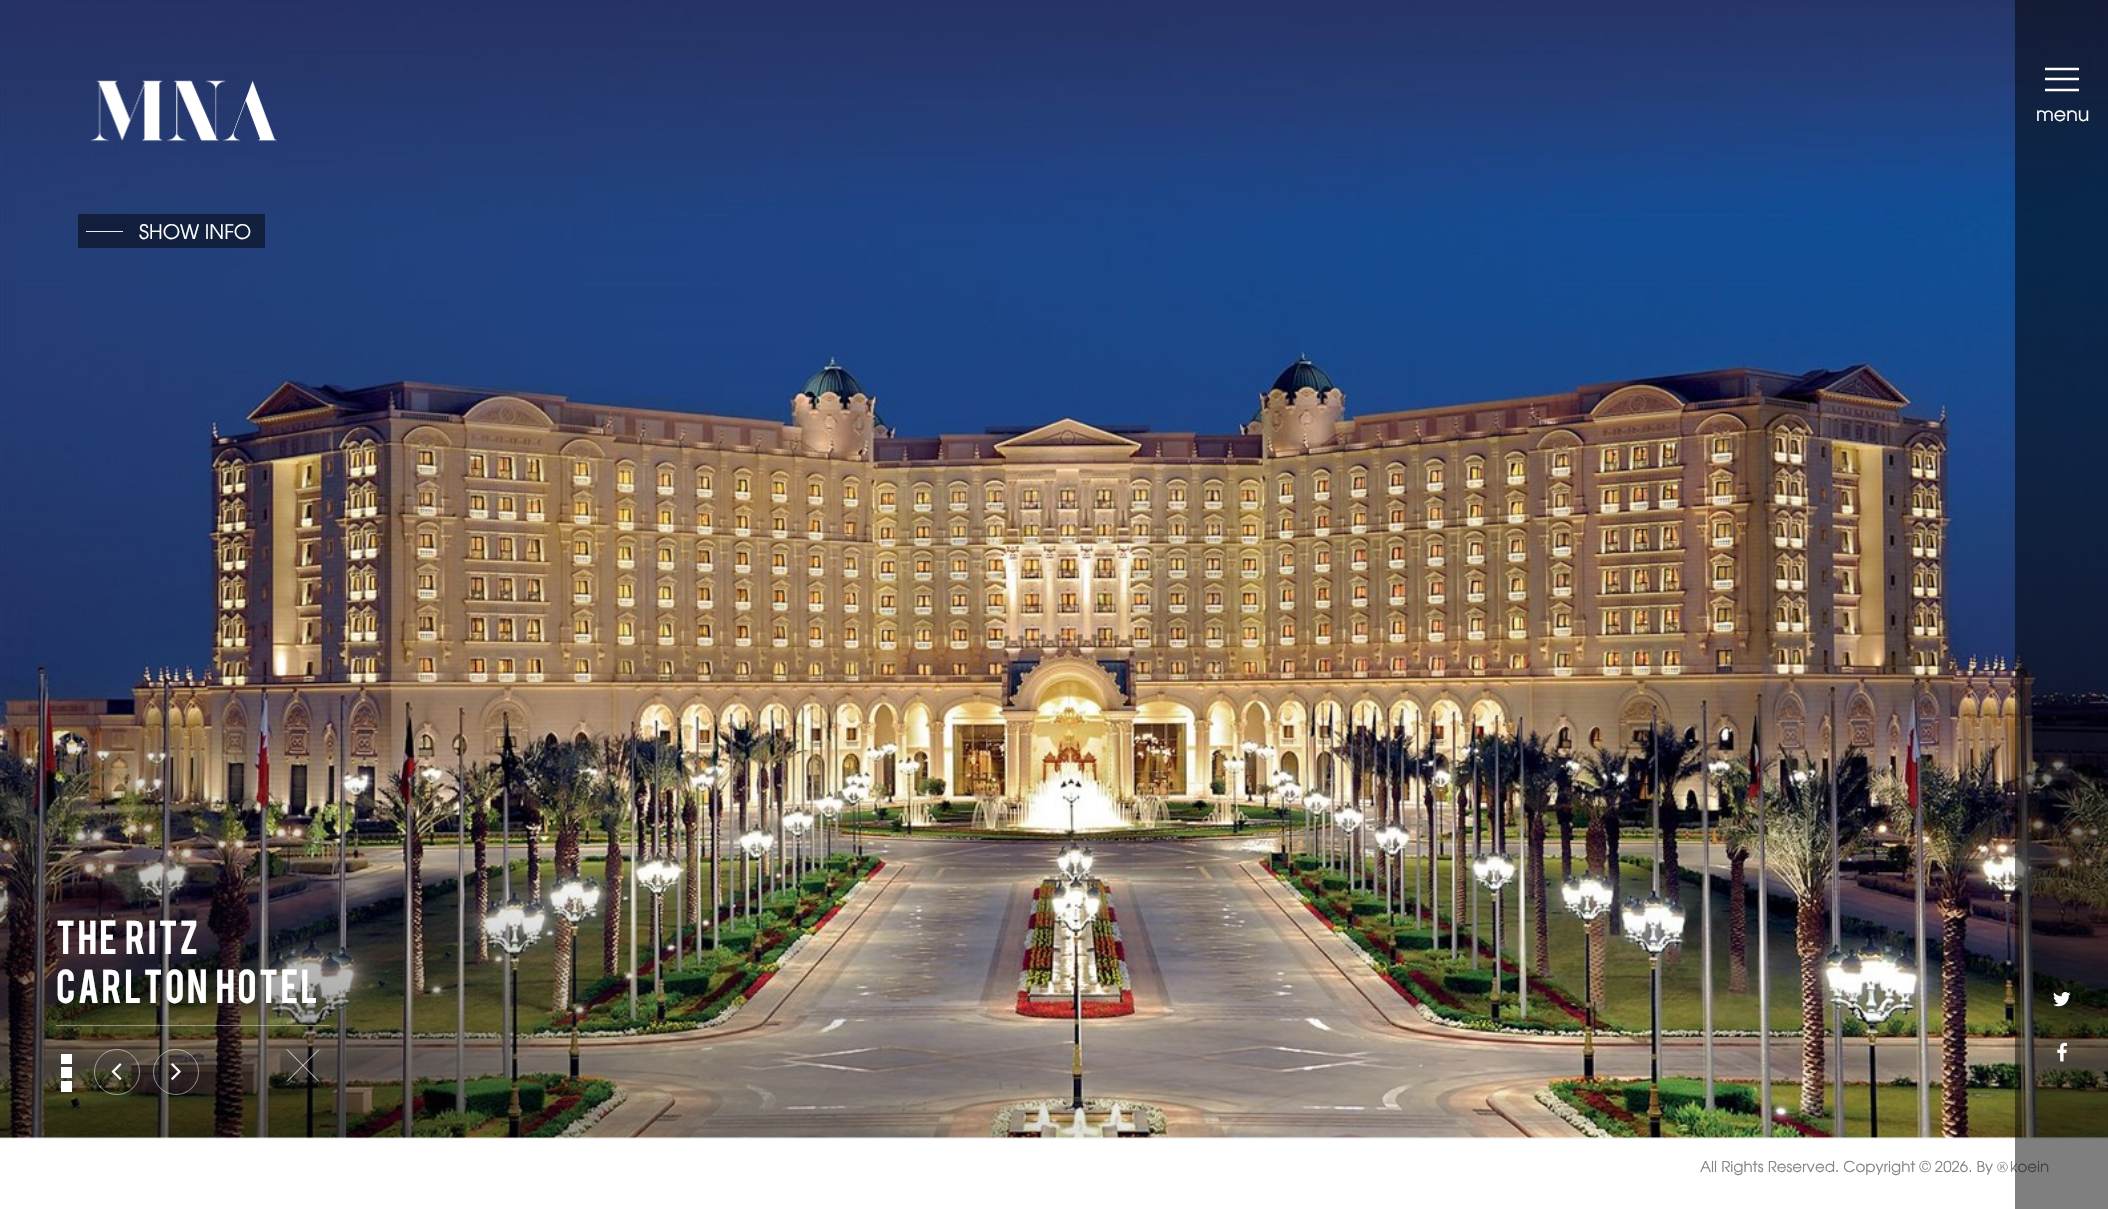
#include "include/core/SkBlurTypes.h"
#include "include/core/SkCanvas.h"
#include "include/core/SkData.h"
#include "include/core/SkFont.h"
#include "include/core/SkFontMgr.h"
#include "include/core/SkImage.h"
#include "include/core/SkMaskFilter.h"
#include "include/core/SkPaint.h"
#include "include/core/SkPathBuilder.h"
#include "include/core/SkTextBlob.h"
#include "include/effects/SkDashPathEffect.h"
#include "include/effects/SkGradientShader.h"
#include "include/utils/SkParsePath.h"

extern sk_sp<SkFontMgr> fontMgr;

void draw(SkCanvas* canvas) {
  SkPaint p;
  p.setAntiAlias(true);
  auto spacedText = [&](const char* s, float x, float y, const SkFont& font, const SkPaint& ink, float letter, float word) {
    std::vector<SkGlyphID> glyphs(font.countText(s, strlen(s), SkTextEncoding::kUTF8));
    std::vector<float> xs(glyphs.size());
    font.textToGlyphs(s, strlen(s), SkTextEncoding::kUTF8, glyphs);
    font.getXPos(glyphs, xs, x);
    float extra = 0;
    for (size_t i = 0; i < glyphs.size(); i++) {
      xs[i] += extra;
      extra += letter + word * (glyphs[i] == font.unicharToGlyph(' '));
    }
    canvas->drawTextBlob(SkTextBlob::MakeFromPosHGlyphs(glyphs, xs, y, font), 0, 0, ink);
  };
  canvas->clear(SK_ColorWHITE);
  canvas->drawImageRect(SkImages::DeferredFromEncodedData(SkData::MakeFromFileName("images/4.png")), SkRect::MakeLTRB(0, 0, 2108, 1138), SkSamplingOptions());
  canvas->drawImageRect(SkImages::DeferredFromEncodedData(SkData::MakeFromFileName("images/1.png")), SkRect::MakeLTRB(90, 80, 277, 142), SkSamplingOptions());
  p.setColor(SkColorSetARGB(128, 0, 0, 0));
  canvas->drawRect(SkRect::MakeLTRB(78, 214, 265, 248), p);
  p.setColor(SkColorSetRGB(238, 238, 238));
  canvas->drawRect(SkRect::MakeLTRB(86, 231, 123, 232), p);
  canvas->drawImageRect(SkImages::DeferredFromEncodedData(SkData::MakeFromFileName("images/5.png")), SkRect::MakeLTRB(0, 677, 1213, 1138), SkSamplingOptions());
  p.setColor(SkColorSetARGB(102, 255, 255, 255));
  canvas->drawRect(SkRect::MakeLTRB(56, 1025, 330, 1026), p);
  p.setColor(SK_ColorWHITE);
  canvas->drawRect(SkRect::MakeLTRB(61, 1054, 72, 1064), p);
  canvas->drawRect(SkRect::MakeLTRB(61, 1067, 72, 1078), p);
  canvas->drawRect(SkRect::MakeLTRB(61, 1081, 72, 1092), p);
  p.setStyle(SkPaint::kStroke_Style);
  p.setStrokeWidth(1);
  p.setColor(SkColorSetARGB(135, 255, 255, 255));
  canvas->drawCircle(117, 1072, 22.5f, p);
  canvas->drawImageRect(SkImages::DeferredFromEncodedData(SkData::MakeFromFileName("images/6.png")), SkRect::MakeLTRB(111, 1063, 122, 1080), SkSamplingOptions());
  canvas->drawCircle(176, 1072, 22.5f, p);
  canvas->drawImageRect(SkImages::DeferredFromEncodedData(SkData::MakeFromFileName("images/7.png")), SkRect::MakeLTRB(171, 1063, 181, 1080), SkSamplingOptions());
  p.setStrokeWidth(0.9f);
  p.setColor(SK_ColorWHITE);
  canvas->drawPath(SkPathBuilder().moveTo(319, 1049.5f).lineTo(287, 1081.5f).moveTo(287, 1049.5f).lineTo(319, 1081.5f).detach(), p);
  p.setStyle(SkPaint::kFill_Style);
  p.setColor(SkColorSetRGB(238, 239, 240));
  canvas->drawRect(SkRect::MakeLTRB(0, 1138, 2108, 1139), p);
  SkFont font1(fontMgr->matchFamilyStyle("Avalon", SkFontStyle::Normal()), 20);
  font1.setSubpixel(true);
  p.setColor(SK_ColorWHITE);
  canvas->drawString("SHOW INFO", 139, 239, font1, p);
  SkFont font2(fontMgr->matchFamilyStyle("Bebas", SkFontStyle::Normal()), 37.5f);
  font2.setSubpixel(true);
  spacedText("THE RITZ", 56, 954, font2, p, 2.25f, 0);
  spacedText("CARLTON HOTEL", 56, 1003, font2, p, 2.25f, 0);
  SkFont font3(fontMgr->matchFamilyStyle("Avalon", SkFontStyle::Normal()), 15);
  font3.setSubpixel(true);
  p.setColor(SkColorSetRGB(132, 132, 132));
  canvas->drawString("All Rights Reserved. Copyright © 2026. By", 1700, 1172, font3, p);
  SkFont font4(fontMgr->matchFamilyStyle("WenQuanYi Zen Hei", SkFontStyle(500, SkFontStyle::kNormal_Width, SkFontStyle::kUpright_Slant)), 11);
  font4.setSubpixel(true);
  canvas->drawString("Ⓚ", 1997, 1171, font4, p);
  canvas->drawString("koein", 2010, 1172, font3, p);
  p.setColor(SkColorSetARGB(128, 0, 0, 0));
  canvas->drawRect(SkRect::MakeLTRB(2015, 0, 2108, 1209), p);
  canvas->drawImageRect(SkImages::DeferredFromEncodedData(SkData::MakeFromFileName("images/3.png")), SkRect::MakeLTRB(2057, 1042, 2067, 1062), SkSamplingOptions());
  canvas->drawImageRect(SkImages::DeferredFromEncodedData(SkData::MakeFromFileName("images/2.png")), SkRect::MakeLTRB(2053, 992, 2071, 1007), SkSamplingOptions());
  SkFont font5(fontMgr->matchFamilyStyle("Avalon", SkFontStyle::Normal()), 19);
  font5.setSubpixel(true);
  p.setColor(SK_ColorWHITE);
  canvas->drawString("menu", 2036, 121, font5, p);
  p.setStyle(SkPaint::kStroke_Style);
  p.setStrokeWidth(2.5f);
  canvas->drawPath(SkPathBuilder().moveTo(2045, 69).lineTo(2079, 69).moveTo(2045, 90).lineTo(2079, 90).moveTo(2045, 79).lineTo(2079, 79).detach(), p);
}
